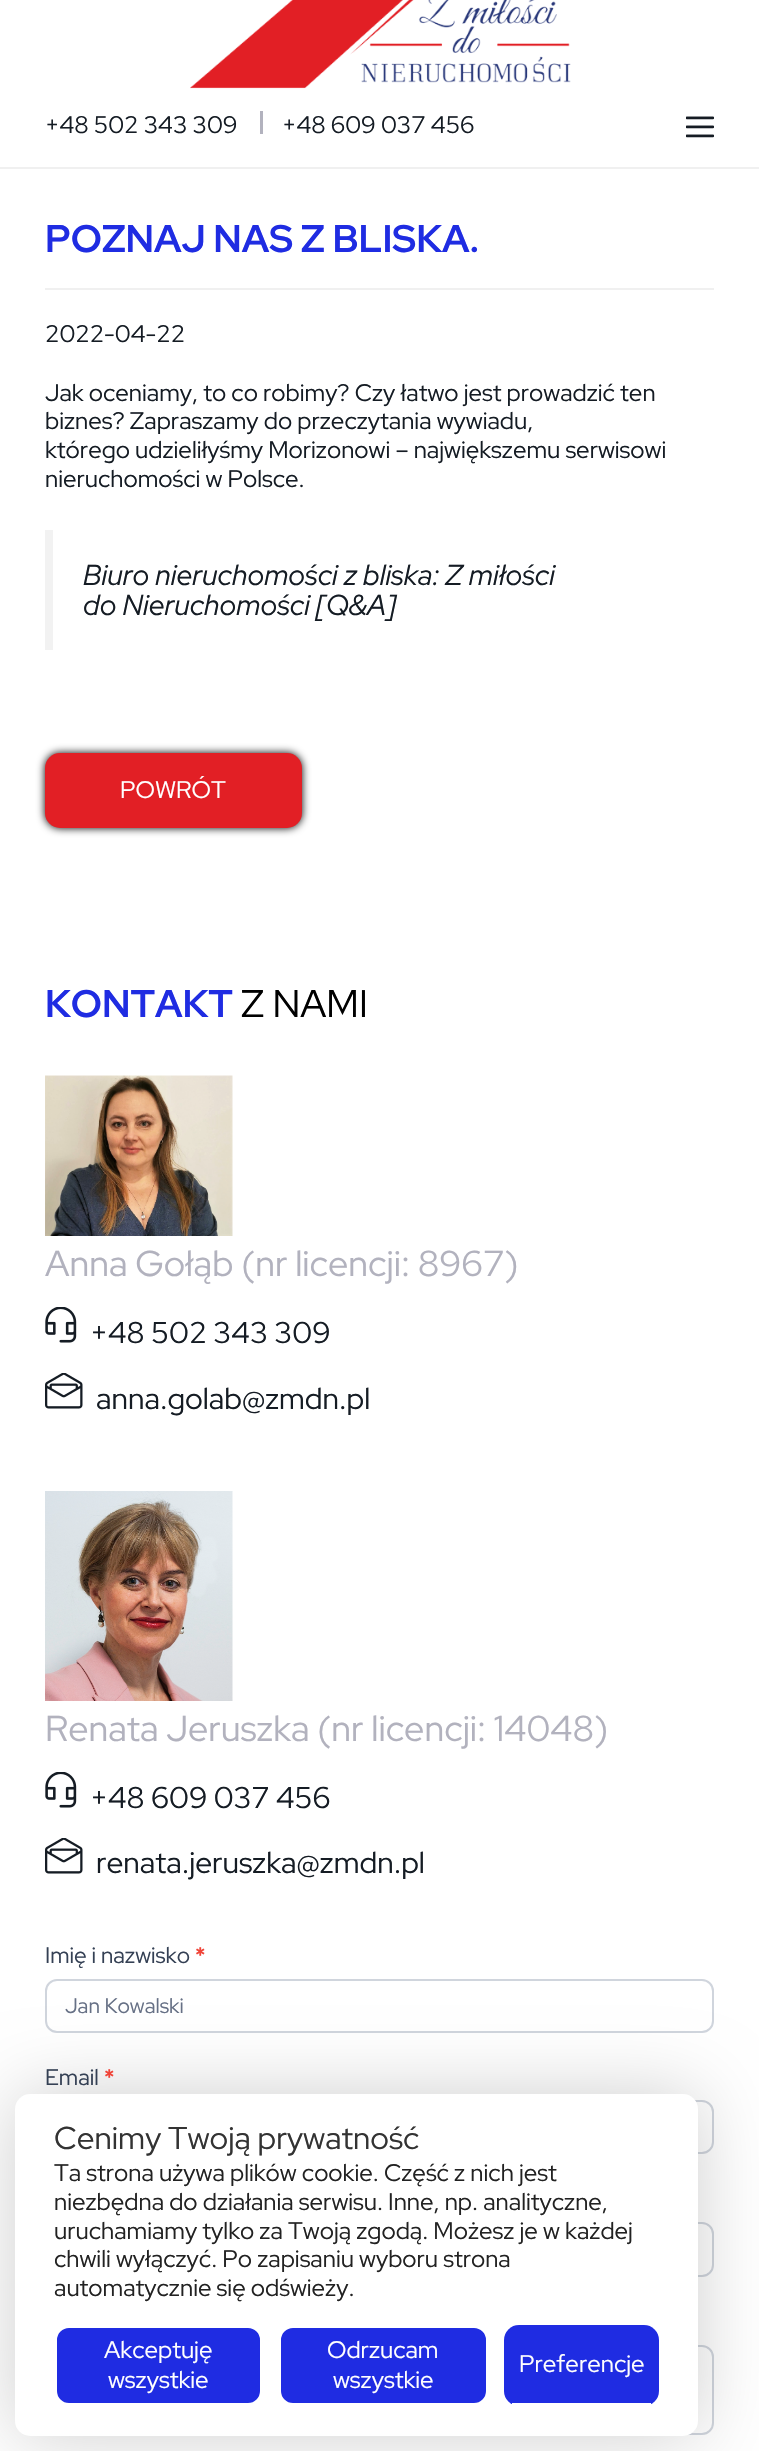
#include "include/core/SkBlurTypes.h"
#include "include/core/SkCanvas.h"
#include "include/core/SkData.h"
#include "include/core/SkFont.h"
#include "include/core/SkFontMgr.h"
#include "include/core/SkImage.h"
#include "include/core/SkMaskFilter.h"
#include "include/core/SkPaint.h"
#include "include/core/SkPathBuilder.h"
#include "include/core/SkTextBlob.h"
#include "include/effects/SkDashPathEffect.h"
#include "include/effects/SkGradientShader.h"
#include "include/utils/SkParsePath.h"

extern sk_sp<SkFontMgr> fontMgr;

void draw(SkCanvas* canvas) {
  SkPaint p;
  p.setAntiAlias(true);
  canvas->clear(SK_ColorWHITE);
  p.setColor(SkColorSetRGB(240, 240, 240));
  canvas->drawRect(SkRect::MakeLTRB(0, 167, 759, 169), p);
  canvas->drawImageRect(SkImages::DeferredFromEncodedData(SkData::MakeFromFileName("images/1.png")), SkRect::MakeLTRB(190, 0, 571, 89), SkSamplingOptions());
  p.setColor(SkColorSetRGB(178, 178, 190));
  canvas->drawRect(SkRect::MakeLTRB(260, 111, 263, 134), p);
  canvas->drawImageRect(SkImages::DeferredFromEncodedData(SkData::MakeFromFileName("images/2.png")), SkRect::MakeLTRB(686, 116, 714, 138), SkSamplingOptions());
  p.setColor(SkColorSetRGB(240, 240, 240));
  canvas->drawRect(SkRect::MakeLTRB(45, 288, 714, 290), p);
  p.setColor(SkColorSetRGB(242, 242, 242));
  canvas->drawRect(SkRect::MakeLTRB(45, 530, 53, 650), p);
  p.setColor(SK_ColorBLACK);
  p.setMaskFilter(SkMaskFilter::MakeBlur(kNormal_SkBlurStyle, 4));
  canvas->drawRoundRect(SkRect::MakeLTRB(45, 753, 302, 828), 15, 15, p);
  p.setMaskFilter(nullptr);
  p.setColor(SkColorSetRGB(226, 31, 37));
  canvas->drawRoundRect(SkRect::MakeLTRB(45, 753, 302, 828), 15, 15, p);
  canvas->drawImageRect(SkImages::DeferredFromEncodedData(SkData::MakeFromFileName("images/3.png")), SkRect::MakeLTRB(45, 1075, 233, 1236), SkSamplingOptions());
  canvas->drawImageRect(SkImages::DeferredFromEncodedData(SkData::MakeFromFileName("images/4.png")), SkRect::MakeLTRB(45, 1307, 77, 1343), SkSamplingOptions());
  canvas->drawImageRect(SkImages::DeferredFromEncodedData(SkData::MakeFromFileName("images/5.png")), SkRect::MakeLTRB(45, 1373, 83, 1409), SkSamplingOptions());
  canvas->drawImageRect(SkImages::DeferredFromEncodedData(SkData::MakeFromFileName("images/6.png")), SkRect::MakeLTRB(45, 1491, 233, 1701), SkSamplingOptions());
  canvas->drawImageRect(SkImages::DeferredFromEncodedData(SkData::MakeFromFileName("images/4.png")), SkRect::MakeLTRB(45, 1772, 77, 1808), SkSamplingOptions());
  canvas->drawImageRect(SkImages::DeferredFromEncodedData(SkData::MakeFromFileName("images/5.png")), SkRect::MakeLTRB(45, 1838, 83, 1874), SkSamplingOptions());
  p.setStyle(SkPaint::kStroke_Style);
  p.setStrokeWidth(2);
  p.setColor(SkColorSetRGB(208, 213, 221));
  canvas->drawRoundRect(SkRect::MakeLTRB(46, 1980, 713, 2032), 11, 11, p);
  canvas->drawRoundRect(SkRect::MakeLTRB(46, 2101, 713, 2153), 11, 11, p);
  canvas->drawRoundRect(SkRect::MakeLTRB(46, 2223, 713, 2276), 11, 11, p);
  canvas->drawRoundRect(SkRect::MakeLTRB(46, 2346, 713, 2434), 11, 11, p);
  p.setStyle(SkPaint::kFill_Style);
  p.setColor(SkColorSetARGB(48, 0, 0, 0));
  p.setMaskFilter(SkMaskFilter::MakeBlur(kNormal_SkBlurStyle, 37.5f));
  canvas->drawRoundRect(SkRect::MakeLTRB(15, 2094, 698, 2436), 15, 15, p);
  p.setMaskFilter(nullptr);
  p.setColor(SK_ColorWHITE);
  canvas->drawRoundRect(SkRect::MakeLTRB(15, 2094, 698, 2436), 15, 15, p);
  p.setColor(SkColorSetRGB(31, 44, 226));
  canvas->drawRoundRect(SkRect::MakeLTRB(55.5f, 2326.5f, 261.5f, 2404.5f), 13.5f, 13.5f, p);
  p.setStyle(SkPaint::kStroke_Style);
  p.setStrokeWidth(3);
  p.setColor(SK_ColorWHITE);
  canvas->drawRoundRect(SkRect::MakeLTRB(55.5f, 2326.5f, 261.5f, 2404.5f), 13.5f, 13.5f, p);
  p.setStyle(SkPaint::kFill_Style);
  p.setColor(SkColorSetRGB(31, 44, 226));
  canvas->drawRoundRect(SkRect::MakeLTRB(279.5f, 2326.5f, 487.5f, 2404.5f), 13.5f, 13.5f, p);
  p.setStyle(SkPaint::kStroke_Style);
  p.setColor(SK_ColorWHITE);
  canvas->drawRoundRect(SkRect::MakeLTRB(279.5f, 2326.5f, 487.5f, 2404.5f), 13.5f, 13.5f, p);
  p.setStyle(SkPaint::kFill_Style);
  p.setColor(SkColorSetRGB(31, 44, 226));
  canvas->drawRoundRect(SkRect::MakeLTRB(504, 2325, 659, 2406), 15, 15, p);
  p.setColor(SK_ColorWHITE);
  canvas->drawRect(SkRect::MakeLTRB(512, 2403, 651, 2406), p);
  SkFont font1(fontMgr->matchFamilyStyle("Red Hat Display", SkFontStyle::Normal()), 24);
  font1.setSubpixel(true);
  p.setColor(SkColorSetRGB(21, 28, 36));
  canvas->drawString("+48 502 343 309", 45, 133, font1, p);
  canvas->drawString("+48 609 037 456", 282, 133, font1, p);
  SkFont font2(fontMgr->matchFamilyStyle("Red Hat Display", SkFontStyle::Bold()), 38.4f);
  font2.setSubpixel(true);
  p.setColor(SkColorSetRGB(31, 44, 226));
  canvas->drawString("POZNAJ NAS Z BLISKA.", 45, 252, font2, p);
  p.setColor(SkColorSetRGB(21, 28, 36));
  canvas->drawString("2022-04-22", 45, 342, font1, p);
  canvas->drawString("Jak oceniamy, to co robimy? Czy łatwo jest prowadzić ten", 45, 401, font1, p);
  canvas->drawString("biznes? Zapraszamy do przeczytania wywiadu,", 45, 429, font1, p);
  canvas->drawString("którego udzieliłyśmy Morizonowi – największemu serwisowi", 45, 458, font1, p);
  canvas->drawString("nieruchomości w Polsce.", 45, 487, font1, p);
  SkFont font3(fontMgr->matchFamilyStyle("Red Hat Display", SkFontStyle::Italic()), 28.75f);
  font3.setSubpixel(true);
  canvas->drawString("Biuro nieruchomości z bliska: Z miłości", 83, 585, font3, p);
  canvas->drawString("do Nieruchomości [Q&A]", 83, 615, font3, p);
  p.setColor(SK_ColorWHITE);
  canvas->drawString("POWRÓT", 120, 798, font1, p);
  p.setColor(SkColorSetRGB(31, 44, 226));
  canvas->drawString("KONTAKT", 45, 1017, font2, p);
  SkFont font4(fontMgr->matchFamilyStyle("Red Hat Display", SkFontStyle::Normal()), 38.4f);
  font4.setSubpixel(true);
  p.setColor(SK_ColorBLACK);
  canvas->drawString("Z NAMI", 241, 1017, font4, p);
  SkFont font5(fontMgr->matchFamilyStyle("Red Hat Display", SkFontStyle::Normal()), 36);
  font5.setSubpixel(true);
  p.setColor(SkColorSetRGB(178, 178, 190));
  canvas->drawString("Anna Gołąb (nr licencji: 8967)", 45, 1276, font5, p);
  SkFont font6(fontMgr->matchFamilyStyle("Red Hat Display", SkFontStyle::Normal()), 30);
  font6.setSubpixel(true);
  p.setColor(SkColorSetRGB(21, 28, 36));
  canvas->drawString("+48 502 343 309", 90, 1343, font6, p);
  canvas->drawString("anna.golab@zmdn.pl", 96, 1409, font6, p);
  p.setColor(SkColorSetRGB(178, 178, 190));
  canvas->drawString("Renata Jeruszka (nr licencji: 14048)", 45, 1741, font5, p);
  p.setColor(SkColorSetRGB(21, 28, 36));
  canvas->drawString("+48 609 037 456", 90, 1808, font6, p);
  canvas->drawString("renata.jeruszka@zmdn.pl", 96, 1873, font6, p);
  SkFont font7(fontMgr->matchFamilyStyle("Red Hat Display", SkFontStyle::Normal()), 22.5f);
  font7.setSubpixel(true);
  p.setColor(SkColorSetRGB(52, 64, 84));
  canvas->drawString("Imię i nazwisko", 45, 1963, font7, p);
  SkFont font8(fontMgr->matchFamilyStyle("Red Hat Display", SkFontStyle::Bold()), 22.5f);
  font8.setSubpixel(true);
  p.setColor(SkColorSetRGB(240, 68, 56));
  canvas->drawString("*", 195, 1963, font8, p);
  SkFont font9(fontMgr->matchFamilyStyle("Red Hat Display", SkFontStyle::Normal()), 21);
  font9.setSubpixel(true);
  p.setColor(SkColorSetRGB(102, 112, 133));
  canvas->drawString("Jan Kowalski", 65, 2013, font9, p);
  p.setColor(SkColorSetRGB(52, 64, 84));
  canvas->drawString("Email", 45, 2085, font7, p);
  p.setColor(SkColorSetRGB(240, 68, 56));
  canvas->drawString("*", 104, 2085, font8, p);
  SkFont font10(fontMgr->matchFamilyStyle("Red Hat Display", SkFontStyle::Normal()), 31.5f);
  font10.setSubpixel(true);
  p.setColor(SkColorSetRGB(51, 51, 51));
  canvas->drawString("Cenimy Twoją prywatność", 54, 2149, font10, p);
  p.setColor(SkColorSetRGB(34, 34, 34));
  canvas->drawString("Ta strona używa plików cookie. Część z nich jest", 54, 2181, font1, p);
  canvas->drawString("niezbędna do działania serwisu. Inne, np. analityczne,", 54, 2210, font1, p);
  canvas->drawString("uruchamiamy tylko za Twoją zgodą. Możesz je w każdej", 54, 2239, font1, p);
  canvas->drawString("chwili wyłączyć. Po zapisaniu wyboru strona", 54, 2267, font1, p);
  canvas->drawString("automatycznie się odświeży.", 54, 2296, font1, p);
  p.setColor(SK_ColorWHITE);
  canvas->drawString("Akceptuję", 104, 2358, font1, p);
  canvas->drawString("wszystkie", 108, 2388, font1, p);
  canvas->drawString("Odrzucam", 327, 2358, font1, p);
  canvas->drawString("wszystkie", 333, 2388, font1, p);
  canvas->drawString("Preferencje", 519, 2372, font1, p);
}
